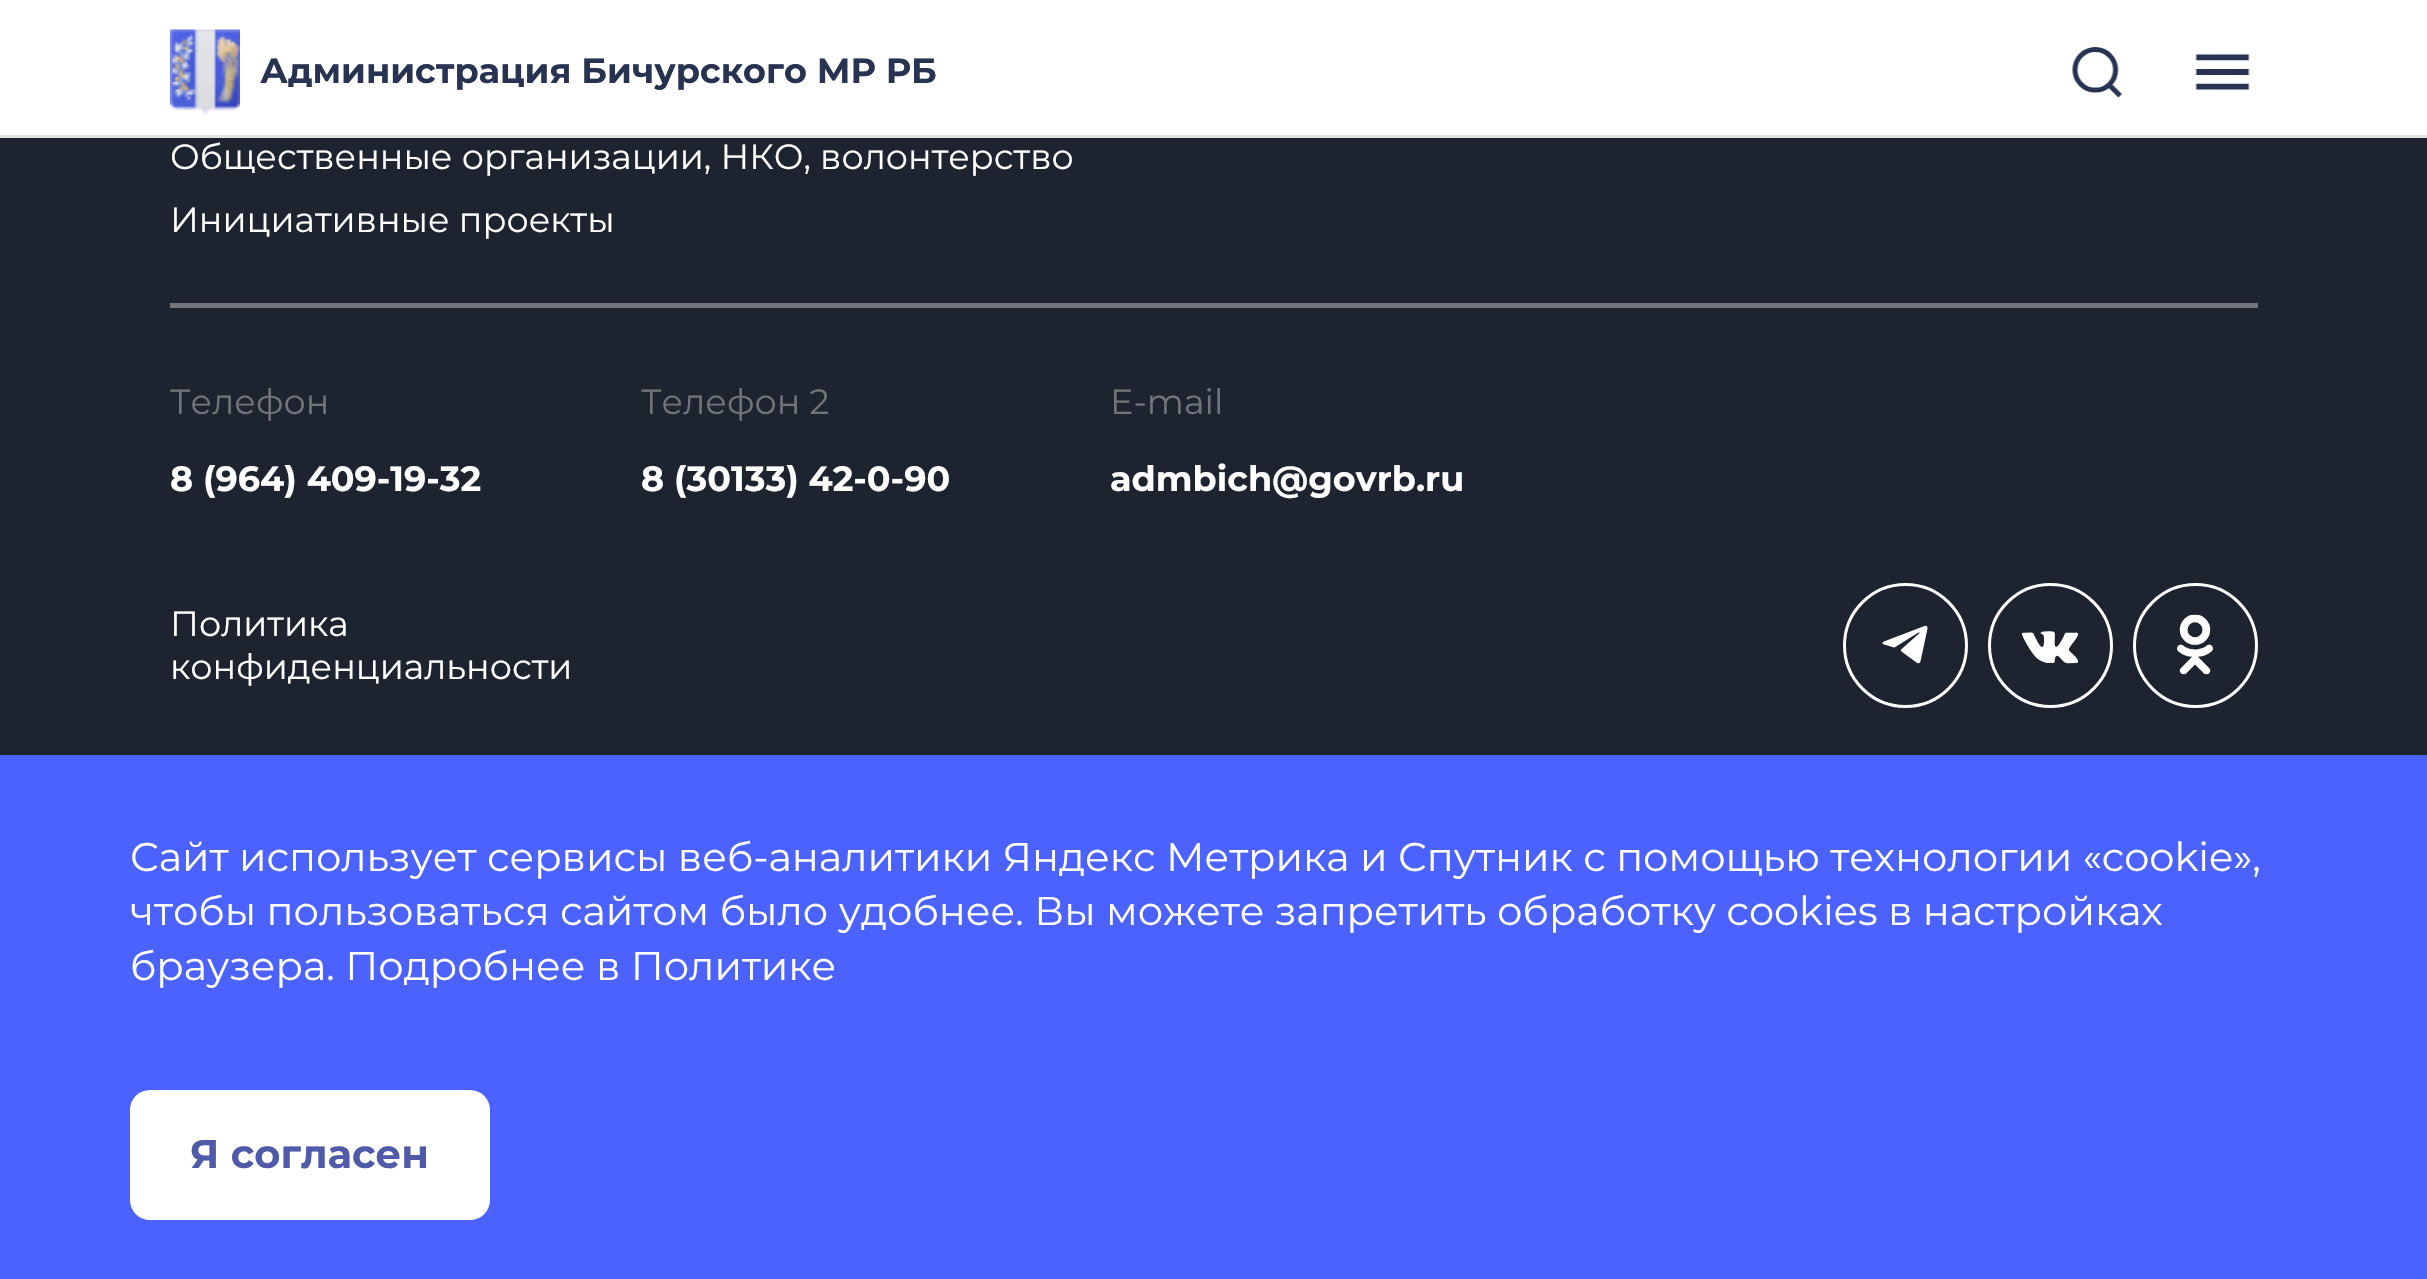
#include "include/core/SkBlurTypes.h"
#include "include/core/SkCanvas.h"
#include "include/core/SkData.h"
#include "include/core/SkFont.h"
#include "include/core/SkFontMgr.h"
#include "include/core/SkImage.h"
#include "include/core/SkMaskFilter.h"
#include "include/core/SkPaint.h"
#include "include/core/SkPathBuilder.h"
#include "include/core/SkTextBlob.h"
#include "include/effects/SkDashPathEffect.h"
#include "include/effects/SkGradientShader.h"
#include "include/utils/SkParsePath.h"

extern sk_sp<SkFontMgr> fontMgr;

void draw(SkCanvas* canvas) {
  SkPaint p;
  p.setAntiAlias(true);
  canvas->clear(SkColorSetRGB(29, 35, 47));
  p.setColor(SK_ColorWHITE);
  canvas->drawRect(SkRect::MakeLTRB(0, 0, 2427, 135), p);
  p.setColor(SkColorSetRGB(227, 227, 227));
  canvas->drawRect(SkRect::MakeLTRB(0, 135, 2427, 138), p);
  canvas->drawImageRect(SkImages::DeferredFromEncodedData(SkData::MakeFromFileName("images/1.png")), SkRect::MakeLTRB(170, 29, 240, 115), SkSamplingOptions());
  canvas->drawImageRect(SkImages::DeferredFromEncodedData(SkData::MakeFromFileName("images/2.png")), SkRect::MakeLTRB(2072, 47, 2123, 98), SkSamplingOptions());
  canvas->drawImageRect(SkImages::DeferredFromEncodedData(SkData::MakeFromFileName("images/3.png")), SkRect::MakeLTRB(2195, 54, 2250, 90), SkSamplingOptions());
  p.setColor(SkColorSetRGB(113, 116, 122));
  canvas->drawRect(SkRect::MakeLTRB(170, 303, 2258, 308), p);
  p.setStyle(SkPaint::kStroke_Style);
  p.setStrokeWidth(3);
  p.setColor(SK_ColorWHITE);
  canvas->drawCircle(1905.5f, 645.5f, 61, p);
  canvas->drawImageRect(SkImages::DeferredFromEncodedData(SkData::MakeFromFileName("images/4.png")), SkRect::MakeLTRB(1882, 625, 1928, 664), SkSamplingOptions());
  canvas->drawCircle(2050.5f, 645.5f, 61, p);
  canvas->drawImageRect(SkImages::DeferredFromEncodedData(SkData::MakeFromFileName("images/5.png")), SkRect::MakeLTRB(2021, 631, 2079, 664), SkSamplingOptions());
  canvas->drawCircle(2195.5f, 645.5f, 61, p);
  canvas->drawImageRect(SkImages::DeferredFromEncodedData(SkData::MakeFromFileName("images/6.png")), SkRect::MakeLTRB(2177, 614, 2213, 675), SkSamplingOptions());
  p.setStyle(SkPaint::kFill_Style);
  p.setColor(SkColorSetRGB(75, 98, 255));
  canvas->drawRect(SkRect::MakeLTRB(0, 755, 2427, 1279), p);
  p.setColor(SK_ColorWHITE);
  canvas->drawRoundRect(SkRect::MakeLTRB(130, 1090, 490, 1220), 20, 20, p);
  SkFont font1(fontMgr->matchFamilyStyle("Montserrat", SkFontStyle::Bold()), 35);
  font1.setSubpixel(true);
  p.setColor(SkColorSetRGB(39, 51, 80));
  canvas->drawString("Администрация Бичурского МР РБ", 260, 83, font1, p);
  SkFont font2(fontMgr->matchFamilyStyle("Montserrat", SkFontStyle::Normal()), 35);
  font2.setSubpixel(true);
  p.setColor(SK_ColorWHITE);
  canvas->drawString("Общественные организации, НКО, волонтерство", 170, 169, font2, p);
  canvas->drawString("Инициативные проекты", 170, 232, font2, p);
  p.setColor(SkColorSetRGB(113, 116, 122));
  canvas->drawString("Телефон", 170, 414, font2, p);
  p.setColor(SK_ColorWHITE);
  canvas->drawString("8 (964) 409-19-32", 170, 491, font1, p);
  p.setColor(SkColorSetRGB(113, 116, 122));
  canvas->drawString("Телефон 2", 641, 414, font2, p);
  p.setColor(SK_ColorWHITE);
  canvas->drawString("8 (30133) 42-0-90", 641, 491, font1, p);
  p.setColor(SkColorSetRGB(113, 116, 122));
  canvas->drawString("E-mail", 1110, 414, font2, p);
  p.setColor(SK_ColorWHITE);
  canvas->drawString("admbich@govrb.ru", 1110, 491, font1, p);
  canvas->drawString("Политика", 170, 636, font2, p);
  canvas->drawString("конфиденциальности", 170, 679, font2, p);
  SkFont font3(fontMgr->matchFamilyStyle("Montserrat", SkFontStyle::Normal()), 40);
  font3.setSubpixel(true);
  canvas->drawString("Сайт использует сервисы веб-аналитики Яндекс Метрика и Спутник с помощью технологии «cookie»,", 130, 871, font3, p);
  canvas->drawString("чтобы пользоваться сайтом было удобнее. Вы можете запретить обработку cookies в настройках", 130, 925, font3, p);
  canvas->drawString("браузера. Подробнее в Политике", 130, 980, font3, p);
  SkFont font4(fontMgr->matchFamilyStyle("Montserrat", SkFontStyle::Bold()), 40);
  font4.setSubpixel(true);
  p.setColor(SkColorSetRGB(79, 90, 168));
  canvas->drawString("Я согласен", 190, 1168, font4, p);
}
